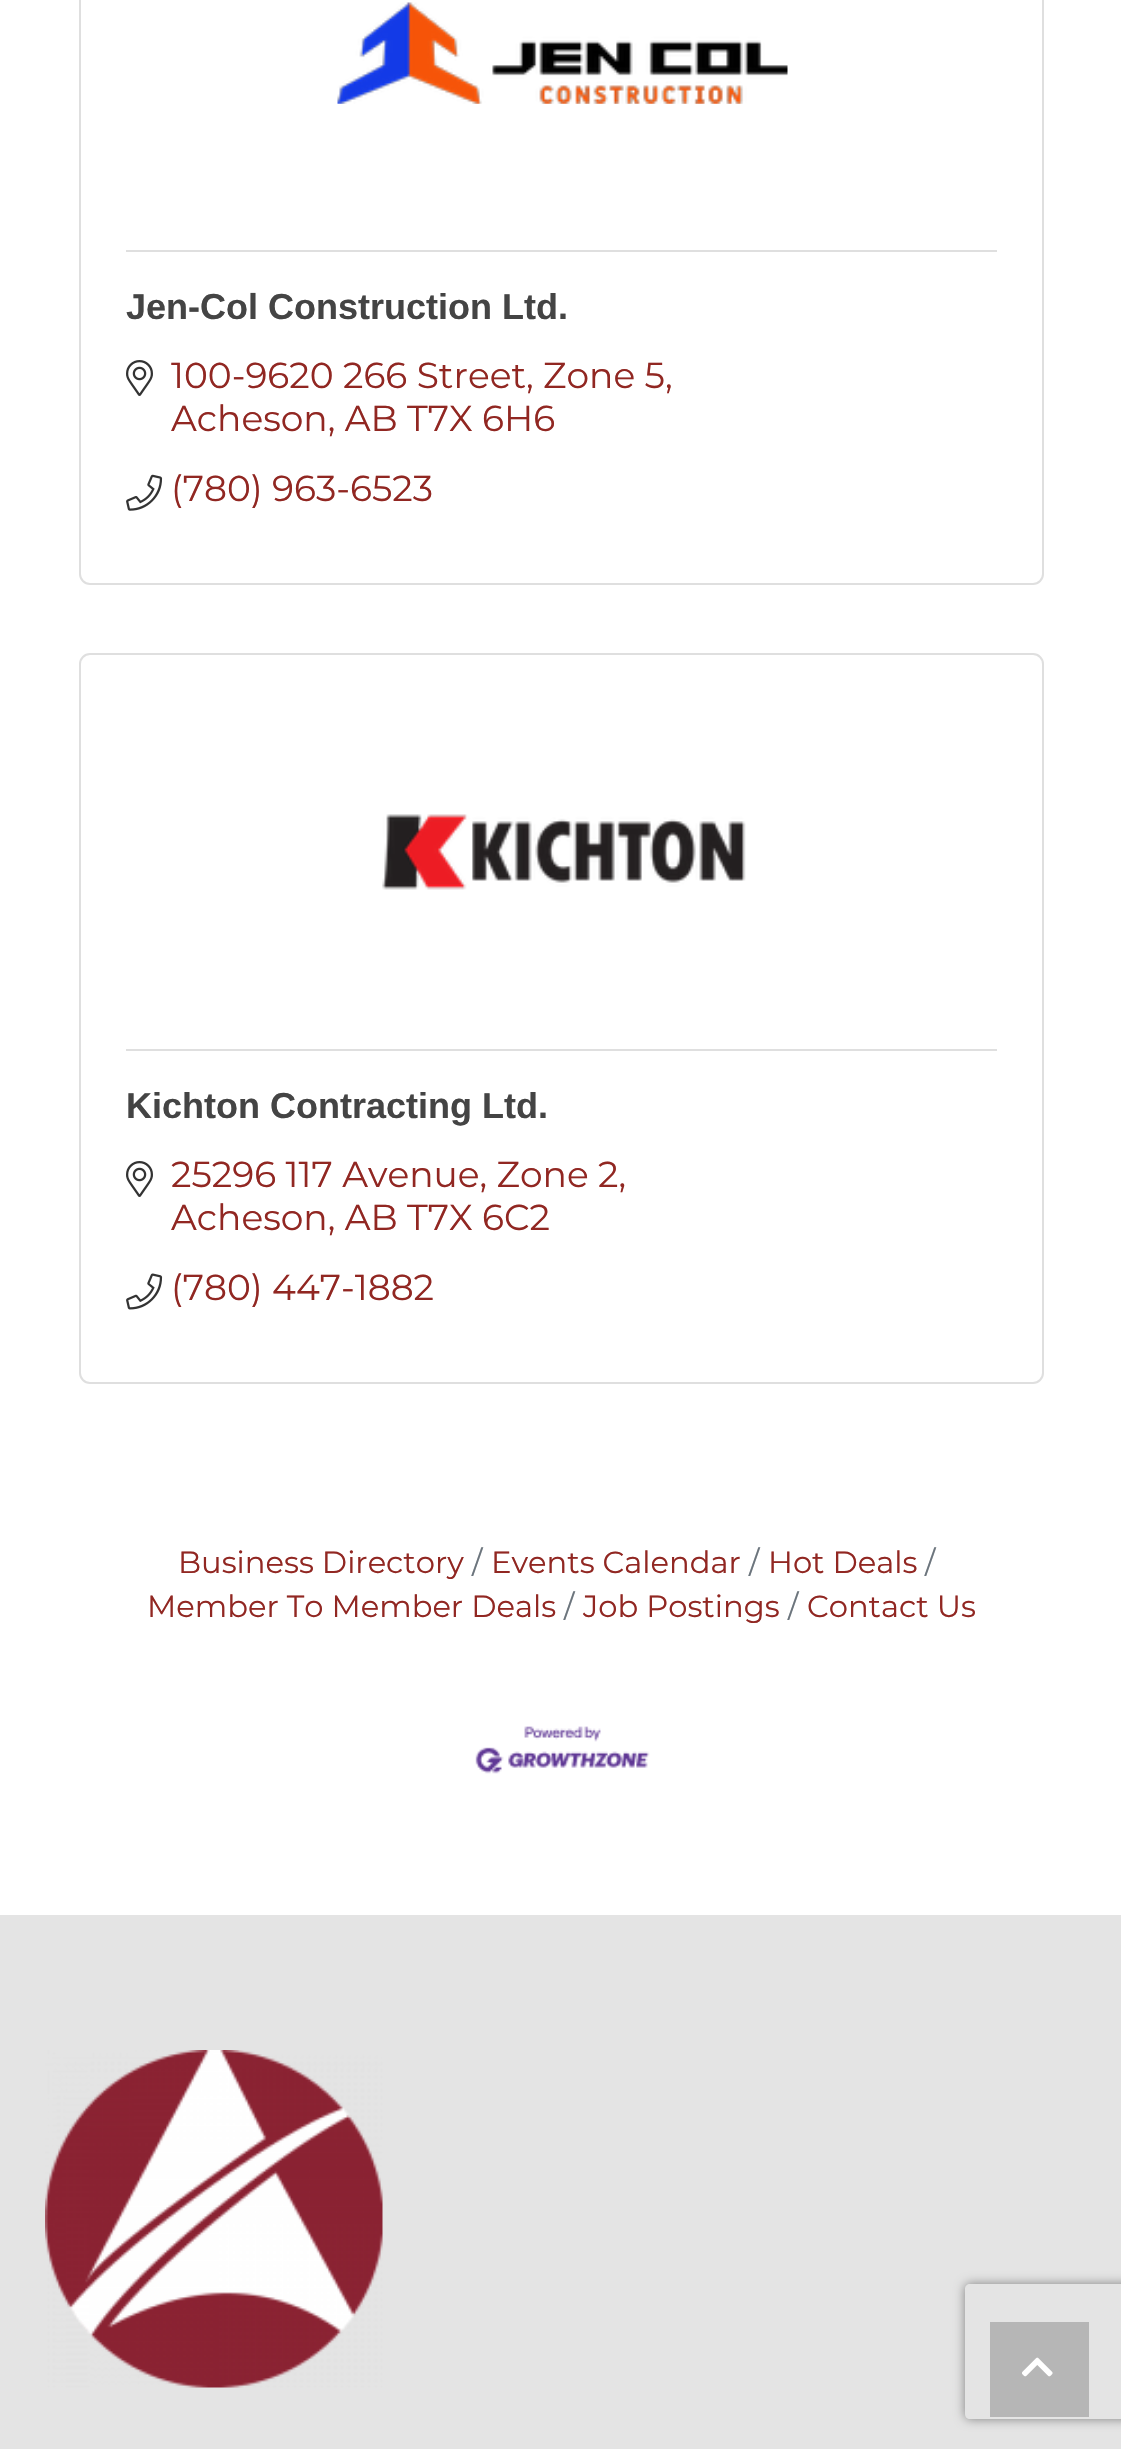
#include "include/core/SkBlurTypes.h"
#include "include/core/SkCanvas.h"
#include "include/core/SkData.h"
#include "include/core/SkFont.h"
#include "include/core/SkFontMgr.h"
#include "include/core/SkImage.h"
#include "include/core/SkMaskFilter.h"
#include "include/core/SkPaint.h"
#include "include/core/SkPathBuilder.h"
#include "include/core/SkTextBlob.h"
#include "include/effects/SkDashPathEffect.h"
#include "include/effects/SkGradientShader.h"
#include "include/utils/SkParsePath.h"

extern sk_sp<SkFontMgr> fontMgr;

void draw(SkCanvas* canvas) {
  SkPaint p;
  p.setAntiAlias(true);
  canvas->clear(SK_ColorWHITE);
  p.setStyle(SkPaint::kStroke_Style);
  p.setStrokeWidth(2);
  p.setColor(SkColorSetRGB(223, 223, 223));
  canvas->drawRoundRect(SkRect::MakeLTRB(80, -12, 1043, 584), 10, 10, p);
  canvas->drawImageRect(SkImages::DeferredFromEncodedData(SkData::MakeFromFileName("images/1.png")), SkRect::MakeLTRB(337, 2, 788, 104), SkSamplingOptions());
  p.setStyle(SkPaint::kFill_Style);
  canvas->drawRect(SkRect::MakeLTRB(126, 250, 997, 252), p);
  canvas->drawImageRect(SkImages::DeferredFromEncodedData(SkData::MakeFromFileName("images/2.png")), SkRect::MakeLTRB(126, 360, 153, 396), SkSamplingOptions());
  canvas->drawImageRect(SkImages::DeferredFromEncodedData(SkData::MakeFromFileName("images/3.png")), SkRect::MakeLTRB(126, 474, 163, 511), SkSamplingOptions());
  p.setStyle(SkPaint::kStroke_Style);
  canvas->drawRoundRect(SkRect::MakeLTRB(80, 654, 1043, 1383), 10, 10, p);
  canvas->drawImageRect(SkImages::DeferredFromEncodedData(SkData::MakeFromFileName("images/4.png")), SkRect::MakeLTRB(382, 814, 746, 890), SkSamplingOptions());
  p.setStyle(SkPaint::kFill_Style);
  canvas->drawRect(SkRect::MakeLTRB(126, 1049, 997, 1051), p);
  canvas->drawImageRect(SkImages::DeferredFromEncodedData(SkData::MakeFromFileName("images/2.png")), SkRect::MakeLTRB(126, 1161, 153, 1197), SkSamplingOptions());
  canvas->drawImageRect(SkImages::DeferredFromEncodedData(SkData::MakeFromFileName("images/5.png")), SkRect::MakeLTRB(126, 1273, 163, 1310), SkSamplingOptions());
  canvas->drawImageRect(SkImages::DeferredFromEncodedData(SkData::MakeFromFileName("images/6.png")), SkRect::MakeLTRB(475, 1726, 650, 1774), SkSamplingOptions());
  p.setColor(SkColorSetRGB(228, 228, 228));
  canvas->drawRect(SkRect::MakeLTRB(0, 1915, 1121, 2449), p);
  canvas->drawImageRect(SkImages::DeferredFromEncodedData(SkData::MakeFromFileName("images/7.png")), SkRect::MakeLTRB(45, 2050, 383, 2388), SkSamplingOptions());
  canvas->save();
  canvas->clipPath(SkPathBuilder(SkPathFillType::kEvenOdd).moveTo(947, 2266).lineTo(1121, 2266).lineTo(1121, 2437).lineTo(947, 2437).close().moveTo(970, 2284).lineTo(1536, 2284).cubicTo(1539, 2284, 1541, 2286, 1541, 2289).lineTo(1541, 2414).cubicTo(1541, 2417, 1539, 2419, 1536, 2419).lineTo(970, 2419).cubicTo(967, 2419, 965, 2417, 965, 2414).lineTo(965, 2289).cubicTo(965, 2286, 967, 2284, 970, 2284).close().detach(), true);
  p.setColor(SkColorSetRGB(128, 128, 128));
  p.setMaskFilter(SkMaskFilter::MakeBlur(kNormal_SkBlurStyle, 5.5f));
  canvas->drawRoundRect(SkRect::MakeLTRB(965, 2284, 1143, 2419), 5, 5, p);
  p.setMaskFilter(nullptr);
  canvas->restore();
  p.setColor(SkColorSetRGB(182, 182, 182));
  canvas->drawRect(SkRect::MakeLTRB(990, 2322, 1089, 2417), p);
  canvas->drawImageRect(SkImages::DeferredFromEncodedData(SkData::MakeFromFileName("images/8.png")), SkRect::MakeLTRB(1022, 2357, 1053, 2377), SkSamplingOptions());
  SkFont font1(fontMgr->matchFamilyStyle("Liberation Sans", SkFontStyle::Bold()), 36);
  font1.setSubpixel(true);
  p.setColor(SkColorSetRGB(68, 68, 68));
  canvas->drawString("Jen-Col Construction Ltd.", 126, 319, font1, p);
  SkFont font2(fontMgr->matchFamilyStyle("Montserrat", SkFontStyle::Normal()), 36);
  font2.setSubpixel(true);
  p.setColor(SkColorSetRGB(145, 39, 34));
  canvas->drawString("100-9620 266 Street, Zone 5,", 171, 388, font2, p);
  canvas->drawString("Acheson, AB T7X 6H6", 171, 431, font2, p);
  canvas->drawString("(780) 963-6523", 171, 501, font2, p);
  p.setColor(SkColorSetRGB(68, 68, 68));
  canvas->drawString("Kichton Contracting Ltd.", 126, 1118, font1, p);
  p.setColor(SkColorSetRGB(145, 39, 34));
  canvas->drawString("25296 117 Avenue, Zone 2,", 171, 1187, font2, p);
  canvas->drawString("Acheson, AB T7X 6C2", 171, 1230, font2, p);
  canvas->drawString("(780) 447-1882", 171, 1300, font2, p);
  SkFont font3(fontMgr->matchFamilyStyle("Montserrat", SkFontStyle::Normal()), 30.6f);
  font3.setSubpixel(true);
  p.setColor(SkColorSetRGB(108, 117, 125));
  canvas->drawString("/", 925, 1573, font3, p);
  p.setColor(SkColorSetRGB(145, 39, 34));
  canvas->drawString("Member To Member Deals", 147, 1617, font3, p);
  canvas->drawString("Business Directory", 178, 1573, font3, p);
  p.setColor(SkColorSetRGB(108, 117, 125));
  canvas->drawString("/", 472, 1573, font3, p);
  p.setColor(SkColorSetRGB(145, 39, 34));
  canvas->drawString("Events Calendar", 491, 1573, font3, p);
  p.setColor(SkColorSetRGB(108, 117, 125));
  canvas->drawString("/", 749, 1573, font3, p);
  p.setColor(SkColorSetRGB(145, 39, 34));
  canvas->drawString("Hot Deals", 768, 1573, font3, p);
  p.setColor(SkColorSetRGB(108, 117, 125));
  canvas->drawString("/", 564, 1617, font3, p);
  p.setColor(SkColorSetRGB(145, 39, 34));
  canvas->drawString("Job Postings", 583, 1617, font3, p);
  p.setColor(SkColorSetRGB(108, 117, 125));
  canvas->drawString("/", 788, 1617, font3, p);
  p.setColor(SkColorSetRGB(145, 39, 34));
  canvas->drawString("Contact Us", 807, 1617, font3, p);
}
